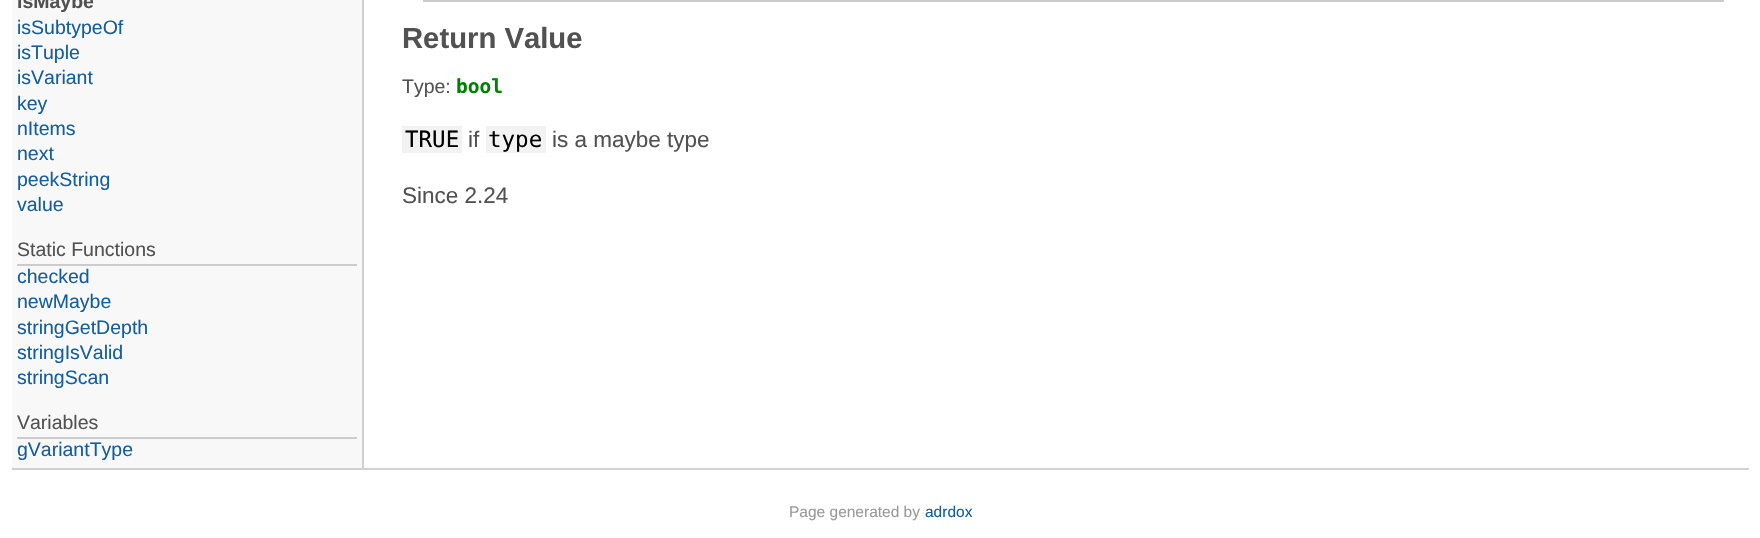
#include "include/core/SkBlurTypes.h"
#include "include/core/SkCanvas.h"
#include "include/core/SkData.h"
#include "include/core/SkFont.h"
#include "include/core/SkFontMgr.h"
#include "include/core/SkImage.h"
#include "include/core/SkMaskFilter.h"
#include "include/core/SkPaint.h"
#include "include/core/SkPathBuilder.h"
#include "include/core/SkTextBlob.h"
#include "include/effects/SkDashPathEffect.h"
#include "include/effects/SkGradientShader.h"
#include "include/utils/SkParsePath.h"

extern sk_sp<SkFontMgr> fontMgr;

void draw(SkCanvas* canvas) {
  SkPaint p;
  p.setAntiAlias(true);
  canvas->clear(SK_ColorWHITE);
  p.setColor(SkColorSetRGB(248, 248, 248));
  canvas->drawRect(SkRect::MakeLTRB(12, 0, 362, 468), p);
  p.setColor(SkColorSetRGB(209, 209, 209));
  canvas->drawRect(SkRect::MakeLTRB(362, 0, 364, 468), p);
  p.setColor(SkColorSetRGB(204, 204, 204));
  canvas->drawRect(SkRect::MakeLTRB(17, 264, 357, 266), p);
  canvas->drawRect(SkRect::MakeLTRB(17, 437, 357, 439), p);
  p.setStyle(SkPaint::kStroke_Style);
  p.setStrokeWidth(2);
  canvas->drawRect(SkRect::MakeLTRB(424, -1, 1723, 1), p);
  p.setStyle(SkPaint::kFill_Style);
  p.setColor(SkColorSetRGB(242, 242, 242));
  canvas->drawRect(SkRect::MakeLTRB(402, 126, 462, 153), p);
  canvas->drawRect(SkRect::MakeLTRB(486, 126, 546, 153), p);
  p.setColor(SkColorSetRGB(209, 209, 209));
  canvas->drawRect(SkRect::MakeLTRB(12, 468, 1749, 470), p);
  SkFont font1(fontMgr->matchFamilyStyle("Liberation Sans", SkFontStyle::Bold()), 19.5f);
  font1.setSubpixel(true);
  p.setColor(SkColorSetRGB(81, 81, 81));
  canvas->drawString("isMaybe", 17, 8, font1, p);
  SkFont font2(fontMgr->matchFamilyStyle("Liberation Sans", SkFontStyle::Normal()), 19.5f);
  font2.setSubpixel(true);
  p.setColor(SkColorSetRGB(20, 94, 157));
  canvas->drawString("isSubtypeOf", 17, 34, font2, p);
  canvas->drawString("isTuple", 17, 59, font2, p);
  canvas->drawString("isVariant", 17, 84, font2, p);
  canvas->drawString("key", 17, 110, font2, p);
  canvas->drawString("nItems", 17, 135, font2, p);
  canvas->drawString("next", 17, 160, font2, p);
  canvas->drawString("peekString", 17, 186, font2, p);
  canvas->drawString("value", 17, 211, font2, p);
  p.setColor(SkColorSetRGB(81, 81, 81));
  canvas->drawString("Static Functions", 17, 256, font2, p);
  p.setColor(SkColorSetRGB(20, 94, 157));
  canvas->drawString("checked", 17, 283, font2, p);
  canvas->drawString("newMaybe", 17, 308, font2, p);
  canvas->drawString("stringGetDepth", 17, 334, font2, p);
  canvas->drawString("stringIsValid", 17, 359, font2, p);
  canvas->drawString("stringScan", 17, 384, font2, p);
  p.setColor(SkColorSetRGB(81, 81, 81));
  canvas->drawString("Variables", 17, 429, font2, p);
  p.setColor(SkColorSetRGB(20, 94, 157));
  canvas->drawString("gVariantType", 17, 456, font2, p);
  SkFont font3(fontMgr->matchFamilyStyle("Liberation Sans", SkFontStyle::Bold()), 29.25f);
  font3.setSubpixel(true);
  p.setColor(SkColorSetRGB(81, 81, 81));
  canvas->drawString("Return Value", 402, 48, font3, p);
  canvas->drawString("Type:", 402, 93, font2, p);
  SkFont font4(fontMgr->matchFamilyStyle("DejaVu Sans Mono", SkFontStyle::Bold()), 19.5f);
  font4.setSubpixel(true);
  p.setColor(SkColorSetRGB(0, 128, 0));
  canvas->drawString("bool", 456, 93, font4, p);
  SkFont font5(fontMgr->matchFamilyStyle("DejaVu Sans Mono", SkFontStyle::Normal()), 22.5f);
  font5.setSubpixel(true);
  p.setColor(SK_ColorBLACK);
  canvas->drawString("TRUE", 405, 147, font5, p);
  SkFont font6(fontMgr->matchFamilyStyle("Liberation Sans", SkFontStyle::Normal()), 22.5f);
  font6.setSubpixel(true);
  p.setColor(SkColorSetRGB(81, 81, 81));
  canvas->drawString("if", 468, 147, font6, p);
  p.setColor(SK_ColorBLACK);
  canvas->drawString("type", 488, 147, font5, p);
  p.setColor(SkColorSetRGB(81, 81, 81));
  canvas->drawString("is a maybe type", 552, 147, font6, p);
  canvas->drawString("Since 2.24", 402, 203, font6, p);
  SkFont font7(fontMgr->matchFamilyStyle("Liberation Sans", SkFontStyle::Normal()), 15.5f);
  font7.setSubpixel(true);
  p.setColor(SkColorSetRGB(153, 153, 153));
  canvas->drawString("Page generated by", 789, 517, font7, p);
  p.setColor(SkColorSetRGB(20, 94, 157));
  canvas->drawString("adrdox", 925, 517, font7, p);
}
